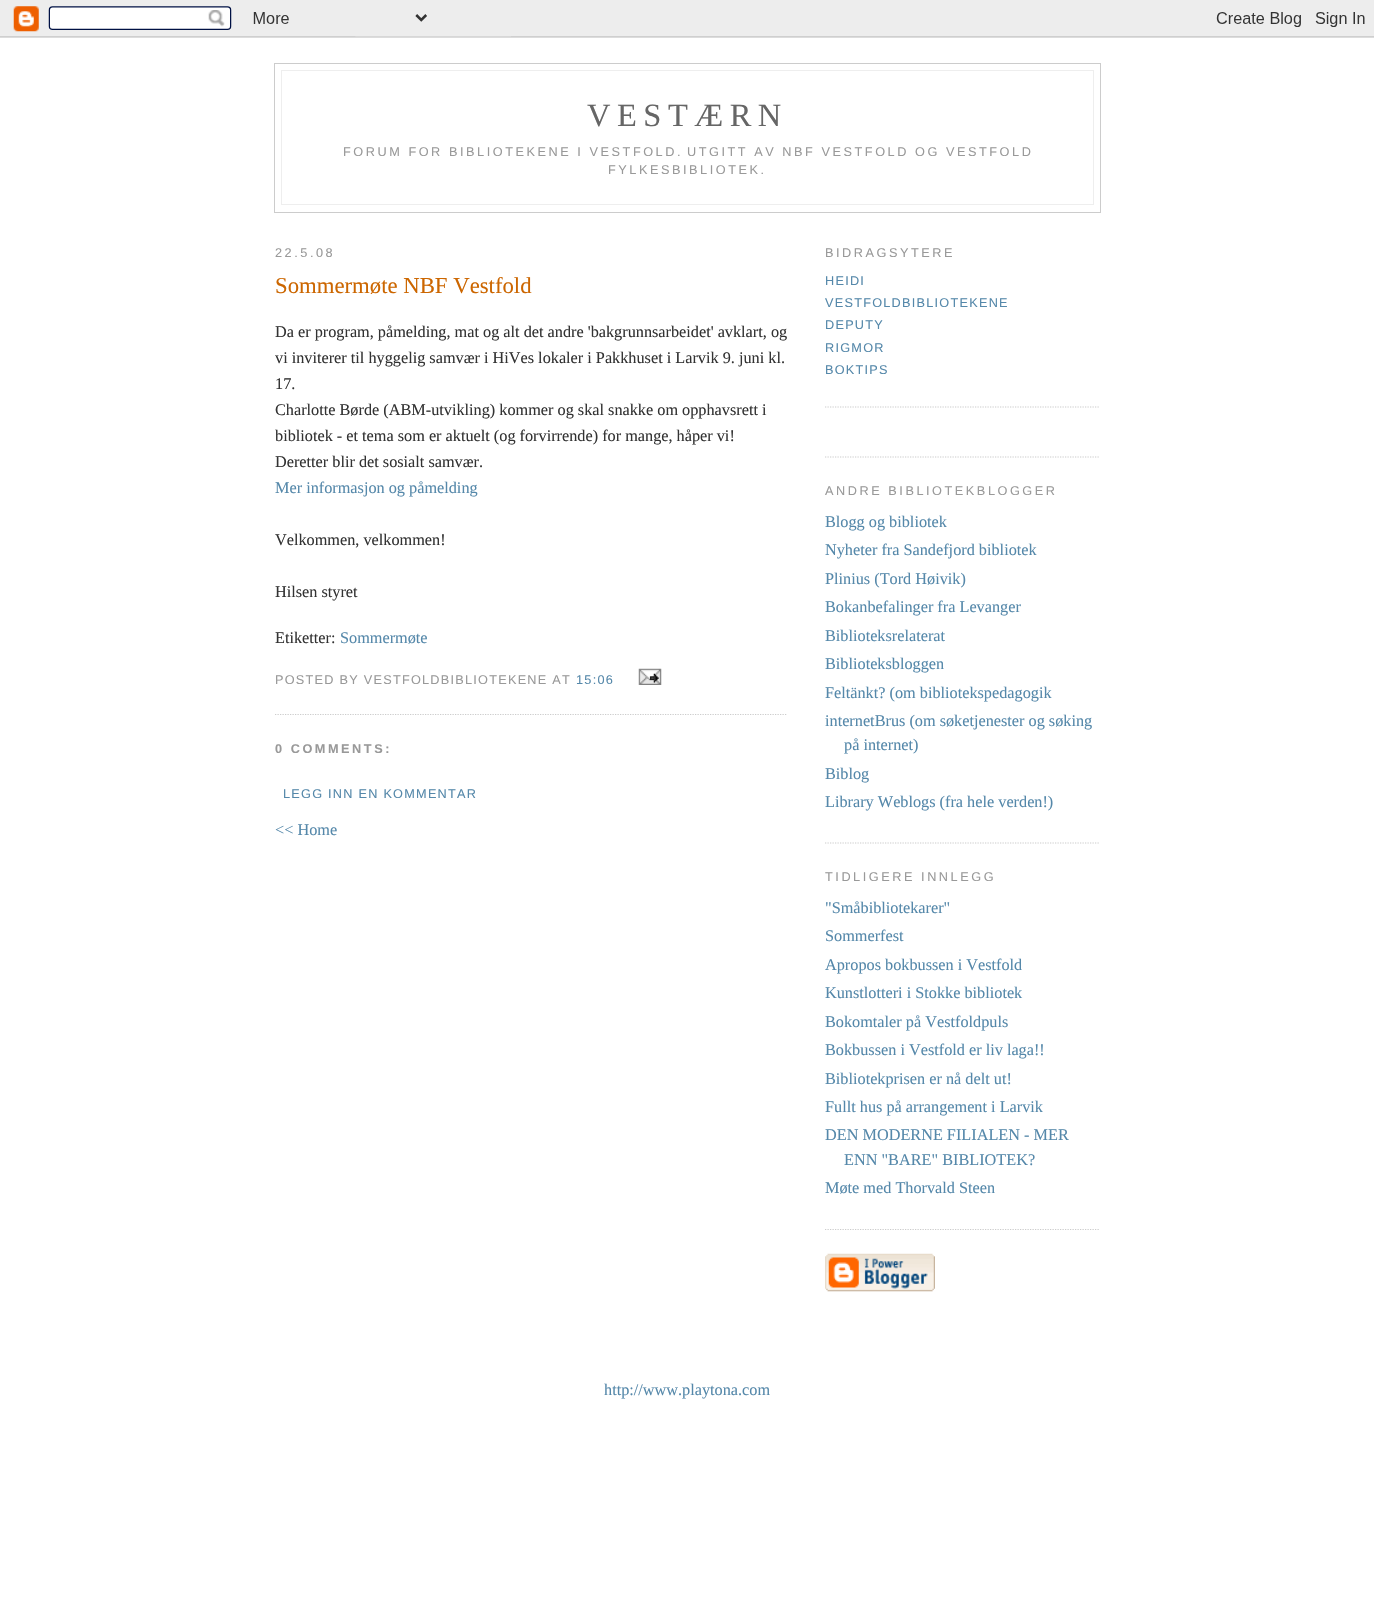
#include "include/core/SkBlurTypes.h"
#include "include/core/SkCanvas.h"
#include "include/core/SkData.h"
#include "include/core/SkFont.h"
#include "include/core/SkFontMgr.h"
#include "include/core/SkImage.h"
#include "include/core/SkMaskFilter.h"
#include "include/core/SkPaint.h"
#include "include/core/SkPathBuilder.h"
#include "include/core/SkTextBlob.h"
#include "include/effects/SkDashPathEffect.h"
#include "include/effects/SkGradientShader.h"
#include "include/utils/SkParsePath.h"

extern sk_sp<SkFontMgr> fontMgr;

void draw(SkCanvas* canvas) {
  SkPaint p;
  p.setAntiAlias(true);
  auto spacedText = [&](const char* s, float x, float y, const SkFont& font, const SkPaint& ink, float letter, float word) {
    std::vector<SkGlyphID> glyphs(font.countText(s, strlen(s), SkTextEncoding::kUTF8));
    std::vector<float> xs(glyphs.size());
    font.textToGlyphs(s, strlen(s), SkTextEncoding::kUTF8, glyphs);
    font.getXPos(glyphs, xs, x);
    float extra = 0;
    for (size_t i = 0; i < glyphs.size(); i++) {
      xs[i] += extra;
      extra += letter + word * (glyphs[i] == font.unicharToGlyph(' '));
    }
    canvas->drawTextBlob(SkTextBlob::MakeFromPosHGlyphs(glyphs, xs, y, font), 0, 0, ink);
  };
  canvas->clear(SK_ColorWHITE);
  canvas->drawImageRect(SkImages::DeferredFromEncodedData(SkData::MakeFromFileName("images/1.png")), SkRect::MakeLTRB(0, 0, 1374, 38), SkSamplingOptions());
  p.setStyle(SkPaint::kStroke_Style);
  p.setStrokeWidth(1);
  p.setColor(SkColorSetRGB(204, 204, 204));
  canvas->drawRect(SkRect::MakeLTRB(274.5f, 63.5f, 1100.5f, 212.5f), p);
  p.setStyle(SkPaint::kFill_Style);
  p.setColor(SkColorSetRGB(238, 238, 238));
  canvas->drawRect(SkRect::MakeLTRB(281, 70, 1094, 71), p);
  canvas->drawRect(SkRect::MakeLTRB(1093, 70, 1094, 205), p);
  canvas->drawRect(SkRect::MakeLTRB(281, 70, 282, 144), p);
  canvas->drawRect(SkRect::MakeLTRB(281, 204, 1094, 205), p);
  canvas->drawRect(SkRect::MakeLTRB(281, 144, 282, 205), p);
  p.setStyle(SkPaint::kStroke_Style);
  p.setStrokeWidth(1.2f);
  p.setColor(SkColorSetRGB(204, 204, 204));
  p.setPathEffect(SkDashPathEffect::Make({{1.25f, 1.25f}}, 0));
  canvas->drawPath(SkPathBuilder().moveTo(275, 714.5f).lineTo(787.5f, 714.5f).detach(), p);
  p.setPathEffect(nullptr);
  canvas->drawImageRect(SkImages::DeferredFromEncodedData(SkData::MakeFromFileName("images/2.png")), SkRect::MakeLTRB(638, 668, 662, 685), SkSamplingOptions());
  p.setPathEffect(SkDashPathEffect::Make({{1.25f, 1.25f}}, 0));
  canvas->drawPath(SkPathBuilder().moveTo(825, 457).lineTo(1100, 457).detach(), p);
  p.setPathEffect(nullptr);
  p.setPathEffect(SkDashPathEffect::Make({{1.25f, 1.25f}}, 0));
  canvas->drawPath(SkPathBuilder().moveTo(825, 407).lineTo(1100, 407).detach(), p);
  p.setPathEffect(nullptr);
  p.setPathEffect(SkDashPathEffect::Make({{1.25f, 1.25f}}, 0));
  canvas->drawPath(SkPathBuilder().moveTo(825, 843).lineTo(1100, 843).detach(), p);
  p.setPathEffect(nullptr);
  p.setPathEffect(SkDashPathEffect::Make({{1.25f, 1.25f}}, 0));
  canvas->drawPath(SkPathBuilder().moveTo(825, 1229.5f).lineTo(1100, 1229.5f).detach(), p);
  p.setPathEffect(nullptr);
  canvas->drawImageRect(SkImages::DeferredFromEncodedData(SkData::MakeFromFileName("images/3.png")), SkRect::MakeLTRB(825, 1253, 935, 1292), SkSamplingOptions());
  SkFont font1(fontMgr->matchFamilyStyle("Liberation Serif", SkFontStyle::Normal()), 32.5f);
  font1.setSubpixel(true);
  p.setStyle(SkPaint::kFill_Style);
  p.setColor(SkColorSetRGB(102, 102, 102));
  spacedText("VESTÆRN", 587, 126, font1, p, 6.5f, 0);
  SkFont font2(fontMgr->matchFamilyStyle("Liberation Sans", SkFontStyle::Normal()), 12.7f);
  font2.setSubpixel(true);
  p.setColor(SkColorSetRGB(153, 153, 153));
  spacedText("FORUM FOR BIBLIOTEKENE I VESTFOLD.", 343, 156, font2, p, 2.55f, 0);
  spacedText("UTGITT AV NBF VESTFOLD OG VESTFOLD", 687, 156, font2, p, 2.55f, 0);
  spacedText("FYLKESBIBLIOTEK.", 608, 174, font2, p, 2.55f, 0);
  spacedText("22.5.08", 275, 257, font2, p, 2.55f, 0);
  SkFont font3(fontMgr->matchFamilyStyle("Liberation Serif", SkFontStyle::Normal()), 22.75f);
  font3.setSubpixel(true);
  p.setColor(SkColorSetRGB(204, 102, 0));
  canvas->drawString("Sommermøte NBF Vestfold", 275, 293, font3, p);
  SkFont font4(fontMgr->matchFamilyStyle("Liberation Serif", SkFontStyle::Normal()), 16.25f);
  font4.setSubpixel(true);
  p.setColor(SkColorSetRGB(51, 51, 51));
  canvas->drawString("Da er program, påmelding, mat og alt det andre 'bakgrunnsarbeidet' avklart, og", 275, 337, font4, p);
  canvas->drawString("vi inviterer til hyggelig samvær i HiVes lokaler i Pakkhuset i Larvik 9. juni kl.", 275, 363, font4, p);
  canvas->drawString("17.", 275, 389, font4, p);
  canvas->drawString("Charlotte Børde (ABM-utvikling) kommer og skal snakke om opphavsrett i", 275, 415, font4, p);
  canvas->drawString("bibliotek - et tema som er aktuelt (og forvirrende) for mange, håper vi!", 275, 441, font4, p);
  canvas->drawString("Deretter blir det sosialt samvær.", 275, 467, font4, p);
  p.setColor(SkColorSetRGB(85, 136, 170));
  canvas->drawString("Mer informasjon og påmelding", 275, 493, font4, p);
  p.setColor(SkColorSetRGB(51, 51, 51));
  canvas->drawString("Velkommen, velkommen!", 275, 545, font4, p);
  canvas->drawString("Hilsen styret", 275, 597, font4, p);
  canvas->drawString("Etiketter:", 275, 643, font4, p);
  p.setColor(SkColorSetRGB(85, 136, 170));
  canvas->drawString("Sommermøte", 340, 643, font4, p);
  p.setColor(SkColorSetRGB(153, 153, 153));
  spacedText("POSTED BY VESTFOLDBIBLIOTEKENE AT", 275, 684, font2, p, 1.25f, 0);
  p.setColor(SkColorSetRGB(85, 136, 170));
  spacedText("15:06", 576, 684, font2, p, 1.25f, 0);
  SkFont font5(fontMgr->matchFamilyStyle("Liberation Sans", SkFontStyle::Bold()), 12.7f);
  font5.setSubpixel(true);
  p.setColor(SkColorSetRGB(153, 153, 153));
  spacedText("0 COMMENTS:", 275, 753, font5, p, 2.55f, 0);
  p.setColor(SkColorSetRGB(85, 136, 170));
  spacedText("LEGG INN EN KOMMENTAR", 283, 798, font2, p, 1.25f, 0);
  canvas->drawString("<< Home", 275, 835, font4, p);
  p.setColor(SkColorSetRGB(153, 153, 153));
  spacedText("BIDRAGSYTERE", 825, 257, font2, p, 2.55f, 0);
  p.setColor(SkColorSetRGB(85, 136, 170));
  spacedText("HEIDI", 825, 285, font2, p, 1.25f, 0);
  spacedText("VESTFOLDBIBLIOTEKENE", 825, 307, font2, p, 1.25f, 0);
  spacedText("DEPUTY", 825, 329, font2, p, 1.25f, 0);
  spacedText("RIGMOR", 825, 352, font2, p, 1.25f, 0);
  spacedText("BOKTIPS", 825, 374, font2, p, 1.25f, 0);
  p.setColor(SkColorSetRGB(153, 153, 153));
  spacedText("ANDRE BIBLIOTEKBLOGGER", 825, 495, font2, p, 2.55f, 0);
  p.setColor(SkColorSetRGB(85, 136, 170));
  canvas->drawString("Blogg og bibliotek", 825, 527, font4, p);
  canvas->drawString("Nyheter fra Sandefjord bibliotek", 825, 555, font4, p);
  canvas->drawString("Plinius (Tord Høivik)", 825, 584, font4, p);
  canvas->drawString("Bokanbefalinger fra Levanger", 825, 612, font4, p);
  canvas->drawString("Biblioteksrelaterat", 825, 641, font4, p);
  canvas->drawString("Biblioteksbloggen", 825, 669, font4, p);
  canvas->drawString("Feltänkt? (om bibliotekspedagogik", 825, 698, font4, p);
  canvas->drawString("internetBrus (om søketjenester og søking", 825, 726, font4, p);
  canvas->drawString("på internet)", 844, 750, font4, p);
  canvas->drawString("Biblog", 825, 779, font4, p);
  canvas->drawString("Library Weblogs (fra hele verden!)", 825, 807, font4, p);
  p.setColor(SkColorSetRGB(153, 153, 153));
  spacedText("TIDLIGERE INNLEGG", 825, 881, font2, p, 2.55f, 0);
  p.setColor(SkColorSetRGB(85, 136, 170));
  canvas->drawString("\"Småbibliotekarer\"", 825, 913, font4, p);
  canvas->drawString("Sommerfest", 825, 941, font4, p);
  canvas->drawString("Apropos bokbussen i Vestfold", 825, 970, font4, p);
  canvas->drawString("Kunstlotteri i Stokke bibliotek", 825, 998, font4, p);
  canvas->drawString("Bokomtaler på Vestfoldpuls", 825, 1027, font4, p);
  canvas->drawString("Bokbussen i Vestfold er liv laga!!", 825, 1055, font4, p);
  canvas->drawString("Bibliotekprisen er nå delt ut!", 825, 1084, font4, p);
  canvas->drawString("Fullt hus på arrangement i Larvik", 825, 1112, font4, p);
  canvas->drawString("DEN MODERNE FILIALEN - MER", 825, 1140, font4, p);
  canvas->drawString("ENN \"BARE\" BIBLIOTEK?", 844, 1165, font4, p);
  canvas->drawString("Møte med Thorvald Steen", 825, 1193, font4, p);
  canvas->drawString("http://www.playtona.com", 604, 1395, font4, p);
}
